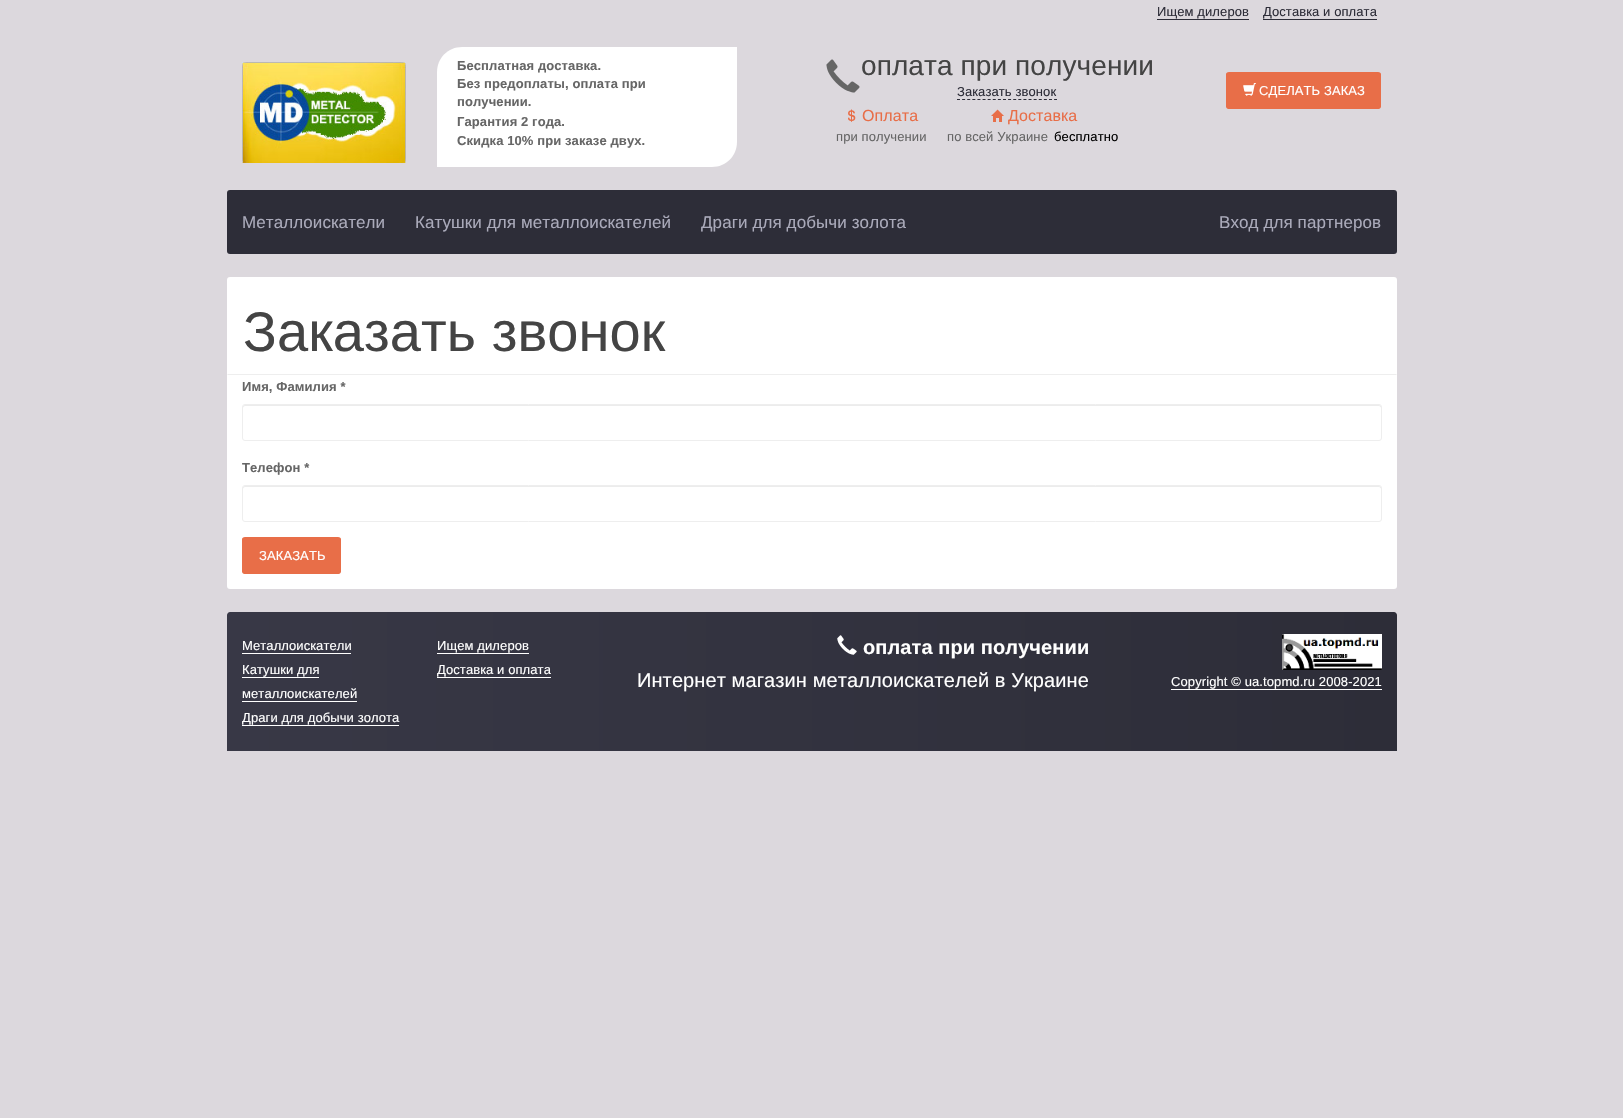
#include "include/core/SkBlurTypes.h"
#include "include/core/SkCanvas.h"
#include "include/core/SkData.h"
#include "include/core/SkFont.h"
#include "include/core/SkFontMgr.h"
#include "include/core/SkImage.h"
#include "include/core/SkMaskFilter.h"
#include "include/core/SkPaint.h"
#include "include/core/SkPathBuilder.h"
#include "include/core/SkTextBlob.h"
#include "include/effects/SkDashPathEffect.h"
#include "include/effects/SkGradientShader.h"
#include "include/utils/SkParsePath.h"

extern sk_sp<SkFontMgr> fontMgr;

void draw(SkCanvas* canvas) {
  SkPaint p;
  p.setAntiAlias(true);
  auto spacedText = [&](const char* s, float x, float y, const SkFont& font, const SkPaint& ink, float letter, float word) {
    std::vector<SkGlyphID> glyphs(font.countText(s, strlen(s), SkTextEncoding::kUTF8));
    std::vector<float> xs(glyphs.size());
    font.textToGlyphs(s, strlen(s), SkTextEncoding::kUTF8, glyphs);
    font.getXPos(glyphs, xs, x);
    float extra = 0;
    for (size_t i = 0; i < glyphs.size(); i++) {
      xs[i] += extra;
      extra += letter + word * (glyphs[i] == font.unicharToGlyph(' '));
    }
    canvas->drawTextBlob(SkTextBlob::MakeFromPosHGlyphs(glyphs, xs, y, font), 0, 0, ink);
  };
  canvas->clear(SkColorSetRGB(220, 216, 221));
  p.setColor(SkColorSetRGB(45, 45, 56));
  canvas->drawRect(SkRect::MakeLTRB(1157, 19, 1249, 20), p);
  canvas->drawRect(SkRect::MakeLTRB(1263, 19, 1377, 20), p);
  canvas->drawImageRect(SkImages::DeferredFromEncodedData(SkData::MakeFromFileName("images/1.png")), SkRect::MakeLTRB(242, 62, 406, 163), SkSamplingOptions());
  p.setColor(SK_ColorWHITE);
  canvas->drawPath(SkPathBuilder().moveTo(462, 47).lineTo(737, 47).lineTo(737, 142).cubicTo(737, 156, 726, 167, 712, 167).lineTo(437, 167).lineTo(437, 72).cubicTo(437, 58, 448, 47, 462, 47).close().detach(), p);
  canvas->drawImageRect(SkImages::DeferredFromEncodedData(SkData::MakeFromFileName("images/2.png")), SkRect::MakeLTRB(826, 59, 860, 93), SkSamplingOptions());
  p.setStyle(SkPaint::kStroke_Style);
  p.setStrokeWidth(1);
  p.setColor(SkColorSetRGB(45, 45, 56));
  p.setPathEffect(SkDashPathEffect::Make({{3, 2.11f}}, 0));
  canvas->drawPath(SkPathBuilder().moveTo(957, 99.5f).lineTo(1057, 99.5f).detach(), p);
  p.setPathEffect(nullptr);
  canvas->drawImageRect(SkImages::DeferredFromEncodedData(SkData::MakeFromFileName("images/3.png")), SkRect::MakeLTRB(848, 109, 856, 122), SkSamplingOptions());
  canvas->drawImageRect(SkImages::DeferredFromEncodedData(SkData::MakeFromFileName("images/4.png")), SkRect::MakeLTRB(991, 109, 1004, 122), SkSamplingOptions());
  p.setStyle(SkPaint::kFill_Style);
  p.setColor(SkColorSetRGB(232, 110, 72));
  canvas->drawRoundRect(SkRect::MakeLTRB(1226, 72, 1381, 109), 3, 3, p);
  canvas->save();
  canvas->clipPath(SkPathBuilder().moveTo(1229, 72).lineTo(1378, 72).cubicTo(1379.5f, 72, 1381, 73.5f, 1381, 75).lineTo(1381, 106).cubicTo(1381, 107.5f, 1379.5f, 109, 1378, 109).lineTo(1229, 109).cubicTo(1227.5f, 109, 1226, 107.5f, 1226, 106).lineTo(1226, 75).cubicTo(1226, 73.5f, 1227.5f, 72, 1229, 72).close().detach(), true);
  {
    const SkColor colors[] = {SkColorSetRGB(232, 110, 72), SkColorSetRGB(229, 88, 45)};
    const float stops[] = {0.8f, 0.81f};
    p.setShader(SkGradientShader::MakeRadial({1304, 91}, 155, colors, stops, 2, SkTileMode::kClamp));
    p.setAlpha(255);
  }
  canvas->drawPath(SkPathBuilder().moveTo(1226, 73).lineTo(1381, 73).lineTo(1381, 106).cubicTo(1381, 107.5f, 1379.5f, 109, 1378, 109).lineTo(1229, 109).cubicTo(1227.5f, 109, 1226, 107.5f, 1226, 106).close().detach(), p);
  canvas->restore();
  canvas->drawImageRect(SkImages::DeferredFromEncodedData(SkData::MakeFromFileName("images/5.png")), SkRect::MakeLTRB(1243, 83, 1256, 96), SkSamplingOptions());
  p.setShader(nullptr);
  p.setColor(SkColorSetRGB(45, 45, 56));
  canvas->drawRoundRect(SkRect::MakeLTRB(227, 190, 1397, 254), 3, 3, p);
  p.setColor(SK_ColorWHITE);
  canvas->drawRoundRect(SkRect::MakeLTRB(227, 277, 1397, 589), 3, 3, p);
  p.setColor(SkColorSetRGB(238, 238, 238));
  canvas->drawPath(SkPathBuilder().moveTo(1397, 375).lineTo(227, 375).lineTo(228, 374).lineTo(1396, 374).close().detach(), p);
  p.setColor(SkColorSetRGB(236, 236, 236));
  canvas->drawPath(SkPathBuilder().moveTo(245, 406).lineTo(1379, 406).cubicTo(1380, 406, 1381, 407, 1381, 408).lineTo(1381, 406).lineTo(1379, 405).lineTo(245, 405).cubicTo(244, 405, 243, 406, 243, 407).lineTo(243, 408).cubicTo(243, 407, 244, 406, 245, 406).close().detach(), p);
  p.setStyle(SkPaint::kStroke_Style);
  p.setColor(SkColorSetRGB(238, 238, 238));
  canvas->drawRoundRect(SkRect::MakeLTRB(242.5f, 404.5f, 1381.5f, 440.5f), 2.5f, 2.5f, p);
  p.setStyle(SkPaint::kFill_Style);
  p.setColor(SkColorSetRGB(236, 236, 236));
  canvas->drawPath(SkPathBuilder().moveTo(245, 487).lineTo(1379, 487).cubicTo(1380, 487, 1381, 488, 1381, 489).lineTo(1381, 487).lineTo(1379, 486).lineTo(245, 486).cubicTo(244, 486, 243, 487, 243, 488).lineTo(243, 489).cubicTo(243, 488, 244, 487, 245, 487).close().detach(), p);
  p.setStyle(SkPaint::kStroke_Style);
  p.setColor(SkColorSetRGB(238, 238, 238));
  canvas->drawRoundRect(SkRect::MakeLTRB(242.5f, 485.5f, 1381.5f, 521.5f), 2.5f, 2.5f, p);
  p.setStyle(SkPaint::kFill_Style);
  p.setColor(SkColorSetRGB(232, 110, 72));
  canvas->drawRoundRect(SkRect::MakeLTRB(242, 537, 341, 574), 3, 3, p);
  canvas->save();
  canvas->clipPath(SkPathBuilder().moveTo(245, 537).lineTo(338, 537).cubicTo(339.5f, 537, 341, 538.5f, 341, 540).lineTo(341, 571).cubicTo(341, 572.5f, 339.5f, 574, 338, 574).lineTo(245, 574).cubicTo(243.5f, 574, 242, 572.5f, 242, 571).lineTo(242, 540).cubicTo(242, 538.5f, 243.5f, 537, 245, 537).close().detach(), true);
  {
    const SkColor colors[] = {SkColorSetRGB(232, 110, 72), SkColorSetRGB(229, 88, 45)};
    const float stops[] = {0.8f, 0.81f};
    p.setShader(SkGradientShader::MakeRadial({292, 556}, 100, colors, stops, 2, SkTileMode::kClamp));
    p.setAlpha(255);
  }
  canvas->drawPath(SkPathBuilder().moveTo(242, 538).lineTo(341, 538).lineTo(341, 571).cubicTo(341, 572.5f, 339.5f, 574, 338, 574).lineTo(245, 574).cubicTo(243.5f, 574, 242, 572.5f, 242, 571).close().detach(), p);
  canvas->restore();
  {
    const SkColor colors[] = {SkColorSetRGB(56, 56, 70), SkColorSetRGB(45, 45, 56)};
    const float stops[] = {0, 1};
    const SkPoint ends[] = {{227, 682}, {1397, 682}};
    p.setShader(SkGradientShader::MakeLinear(ends, colors, stops, 2, SkTileMode::kClamp));
    p.setAlpha(255);
  }
  canvas->drawPath(SkPathBuilder().moveTo(230, 612).lineTo(1394, 612).cubicTo(1395.5f, 612, 1397, 613.5f, 1397, 615).lineTo(1397, 751).lineTo(227, 751).lineTo(227, 615).cubicTo(227, 613.5f, 228.5f, 612, 230, 612).close().detach(), p);
  p.setShader(nullptr);
  p.setColor(SK_ColorWHITE);
  canvas->drawRect(SkRect::MakeLTRB(242, 653, 351, 654), p);
  canvas->drawRect(SkRect::MakeLTRB(242, 677, 319, 678), p);
  canvas->drawRect(SkRect::MakeLTRB(242, 701, 357, 702), p);
  canvas->drawRect(SkRect::MakeLTRB(242, 725, 399, 726), p);
  canvas->drawRect(SkRect::MakeLTRB(437, 653, 529, 654), p);
  canvas->drawRect(SkRect::MakeLTRB(437, 677, 551, 678), p);
  canvas->drawImageRect(SkImages::DeferredFromEncodedData(SkData::MakeFromFileName("images/6.png")), SkRect::MakeLTRB(837, 635, 857, 655), SkSamplingOptions());
  canvas->drawImageRect(SkImages::DeferredFromEncodedData(SkData::MakeFromFileName("images/7.png")), SkRect::MakeLTRB(1282, 634, 1382, 670), SkSamplingOptions());
  canvas->drawRect(SkRect::MakeLTRB(1171, 689, 1382, 690), p);
  SkFont font1(fontMgr->matchFamilyStyle("Liberation Sans", SkFontStyle::Normal()), 13);
  font1.setSubpixel(true);
  p.setColor(SkColorSetRGB(45, 45, 56));
  spacedText("Ищем дилеров", 1157, 16, font1, p, 0.1f, 0);
  spacedText("Доставка и оплата", 1263, 16, font1, p, 0.1f, 0);
  SkFont font2(fontMgr->matchFamilyStyle("Liberation Sans", SkFontStyle::Bold()), 13);
  font2.setSubpixel(true);
  p.setColor(SkColorSetRGB(102, 102, 102));
  spacedText("Бесплатная доставка.", 457, 70, font2, p, 0.1f, 0);
  spacedText("Без предоплаты, оплата при", 457, 88, font2, p, 0.1f, 0);
  spacedText("получении.", 457, 106, font2, p, 0.1f, 0);
  spacedText("Гарантия 2 года.", 457, 126, font2, p, 0.1f, 0);
  spacedText("Скидка 10% при заказе двух.", 457, 145, font2, p, 0.1f, 0);
  SkFont font3(fontMgr->matchFamilyStyle("Liberation Sans", SkFontStyle::Normal()), 28);
  font3.setSubpixel(true);
  p.setColor(SkColorSetRGB(68, 68, 68));
  spacedText("оплата при получении", 861, 75, font3, p, 0.1f, 0);
  p.setColor(SkColorSetRGB(45, 45, 56));
  spacedText("Заказать звонок", 957, 96, font1, p, 0.1f, 0);
  SkFont font4(fontMgr->matchFamilyStyle("Liberation Sans", SkFontStyle::Normal()), 16);
  font4.setSubpixel(true);
  p.setColor(SkColorSetRGB(232, 110, 72));
  spacedText("Оплата", 862, 121, font4, p, 0.1f, 0);
  spacedText("Доставка", 1008, 121, font4, p, 0.1f, 0);
  p.setColor(SkColorSetRGB(102, 102, 102));
  spacedText("при получении", 836, 141, font1, p, 0.1f, 0);
  spacedText("по всей Украине", 947, 141, font1, p, 0.1f, 0);
  p.setColor(SK_ColorBLACK);
  spacedText("бесплатно", 1054, 141, font1, p, 0.1f, 0);
  p.setColor(SK_ColorWHITE);
  spacedText("СДЕЛАТЬ ЗАКАЗ", 1259, 95, font1, p, 0.1f, 0);
  SkFont font5(fontMgr->matchFamilyStyle("Liberation Sans", SkFontStyle::Normal()), 17);
  font5.setSubpixel(true);
  p.setColor(SkColorSetRGB(170, 170, 186));
  spacedText("Металлоискатели", 242, 228, font5, p, 0.1f, 0);
  spacedText("Катушки для металлоискателей", 415, 228, font5, p, 0.1f, 0);
  spacedText("Драги для добычи золота", 701, 228, font5, p, 0.1f, 0);
  spacedText("Вход для партнеров", 1219, 228, font5, p, 0.1f, 0);
  SkFont font6(fontMgr->matchFamilyStyle("Liberation Sans", SkFontStyle::Normal()), 56);
  font6.setSubpixel(true);
  p.setColor(SkColorSetRGB(68, 68, 68));
  spacedText("Заказать звонок", 243, 351, font6, p, 0.1f, 0);
  p.setColor(SkColorSetRGB(102, 102, 102));
  spacedText("Имя, Фамилия *", 242, 391, font2, p, 0.1f, 0);
  spacedText("Телефон *", 242, 472, font2, p, 0.1f, 0);
  p.setColor(SK_ColorWHITE);
  spacedText("ЗАКАЗАТЬ", 259, 560, font1, p, 0.1f, 0);
  spacedText("Металлоискатели", 242, 650, font1, p, 0.1f, 0);
  spacedText("Катушки для", 242, 674, font1, p, 0.1f, 0);
  spacedText("металлоискателей", 242, 698, font1, p, 0.1f, 0);
  spacedText("Драги для добычи золота", 242, 722, font1, p, 0.1f, 0);
  spacedText("Ищем дилеров", 437, 650, font1, p, 0.1f, 0);
  spacedText("Доставка и оплата", 437, 674, font1, p, 0.1f, 0);
  SkFont font7(fontMgr->matchFamilyStyle("Liberation Sans", SkFontStyle::Bold()), 20);
  font7.setSubpixel(true);
  spacedText("оплата при получении", 863, 654, font7, p, 0.1f, 0);
  SkFont font8(fontMgr->matchFamilyStyle("Liberation Sans", SkFontStyle::Normal()), 20);
  font8.setSubpixel(true);
  spacedText("Интернет магазин металлоискателей в Украине", 637, 687, font8, p, 0.1f, 0);
  spacedText("Copyright © ua.topmd.ru 2008-2021", 1171, 686, font1, p, 0.1f, 0);
}
